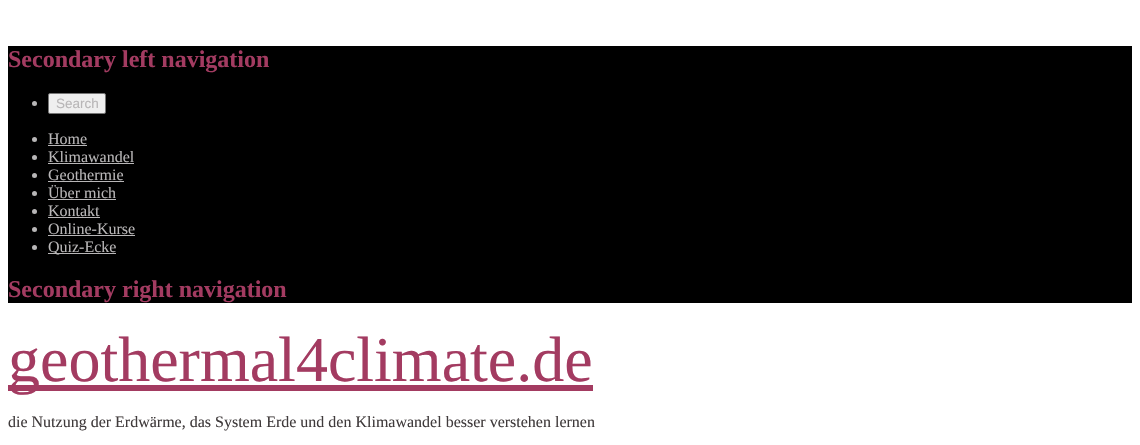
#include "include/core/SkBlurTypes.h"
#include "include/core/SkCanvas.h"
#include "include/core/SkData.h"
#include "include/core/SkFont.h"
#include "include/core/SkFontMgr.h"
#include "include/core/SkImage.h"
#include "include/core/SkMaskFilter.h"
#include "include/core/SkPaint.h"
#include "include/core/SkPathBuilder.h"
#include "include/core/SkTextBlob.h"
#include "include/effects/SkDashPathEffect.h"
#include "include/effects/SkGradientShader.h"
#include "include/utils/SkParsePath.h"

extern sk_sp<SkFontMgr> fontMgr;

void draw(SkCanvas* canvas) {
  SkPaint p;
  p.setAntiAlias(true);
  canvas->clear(SK_ColorWHITE);
  p.setColor(SK_ColorBLACK);
  canvas->drawRect(SkRect::MakeLTRB(8, 46, 1132, 303), p);
  p.setColor(SkColorSetRGB(184, 182, 183));
  canvas->drawCircle(34.5f, 103.5f, 2.5f, p);
  p.setColor(SkColorSetRGB(239, 239, 239));
  canvas->drawRoundRect(SkRect::MakeLTRB(48.5f, 93.5f, 105.5f, 113.5f), 1.5f, 1.5f, p);
  p.setStyle(SkPaint::kStroke_Style);
  p.setStrokeWidth(1);
  p.setColor(SkColorSetRGB(118, 118, 118));
  canvas->drawRoundRect(SkRect::MakeLTRB(48.5f, 93.5f, 105.5f, 113.5f), 1.5f, 1.5f, p);
  p.setStyle(SkPaint::kFill_Style);
  p.setColor(SkColorSetRGB(184, 182, 183));
  canvas->drawCircle(34.5f, 139.5f, 2.5f, p);
  canvas->drawRect(SkRect::MakeLTRB(48, 145, 87, 146), p);
  canvas->drawCircle(34.5f, 157.5f, 2.5f, p);
  canvas->drawRect(SkRect::MakeLTRB(48, 163, 134, 164), p);
  canvas->drawCircle(34.5f, 175.5f, 2.5f, p);
  canvas->drawRect(SkRect::MakeLTRB(48, 181, 124, 182), p);
  canvas->drawCircle(34.5f, 193.5f, 2.5f, p);
  canvas->drawRect(SkRect::MakeLTRB(48, 199, 116, 200), p);
  canvas->drawCircle(34.5f, 211.5f, 2.5f, p);
  canvas->drawRect(SkRect::MakeLTRB(48, 217, 100, 218), p);
  canvas->drawCircle(34.5f, 229.5f, 2.5f, p);
  canvas->drawRect(SkRect::MakeLTRB(48, 235, 135, 236), p);
  canvas->drawCircle(34.5f, 247.5f, 2.5f, p);
  canvas->drawRect(SkRect::MakeLTRB(48, 253, 116, 254), p);
  p.setColor(SkColorSetRGB(163, 59, 97));
  canvas->drawRect(SkRect::MakeLTRB(8, 385, 593, 391), p);
  SkFont font1(fontMgr->matchFamilyStyle("Liberation Serif", SkFontStyle::Bold()), 24);
  font1.setSubpixel(true);
  canvas->drawString("Secondary left navigation", 8, 67, font1, p);
  SkFont font2(fontMgr->matchFamilyStyle("Liberation Sans", SkFontStyle::Normal()), 13.5f);
  font2.setSubpixel(true);
  p.setColor(SkColorSetRGB(184, 182, 183));
  canvas->drawString("Search", 56, 108, font2, p);
  SkFont font3(fontMgr->matchFamilyStyle("Liberation Serif", SkFontStyle::Normal()), 16);
  font3.setSubpixel(true);
  canvas->drawString("Home", 48, 144, font3, p);
  canvas->drawString("Klimawandel", 48, 162, font3, p);
  canvas->drawString("Geothermie", 48, 180, font3, p);
  canvas->drawString("Über mich", 48, 198, font3, p);
  canvas->drawString("Kontakt", 48, 216, font3, p);
  canvas->drawString("Online-Kurse", 48, 234, font3, p);
  canvas->drawString("Quiz-Ecke", 48, 252, font3, p);
  p.setColor(SkColorSetRGB(163, 59, 97));
  canvas->drawString("Secondary right navigation", 8, 297, font1, p);
  SkFont font4(fontMgr->matchFamilyStyle("Liberation Serif", SkFontStyle::Normal()), 64);
  font4.setSubpixel(true);
  canvas->drawString("geothermal4climate.de", 8, 381, font4, p);
  p.setColor(SkColorSetRGB(64, 59, 60));
  canvas->drawString("die Nutzung der Erdwärme, das System Erde und den Klimawandel besser verstehen lernen", 8, 427, font3, p);
}
